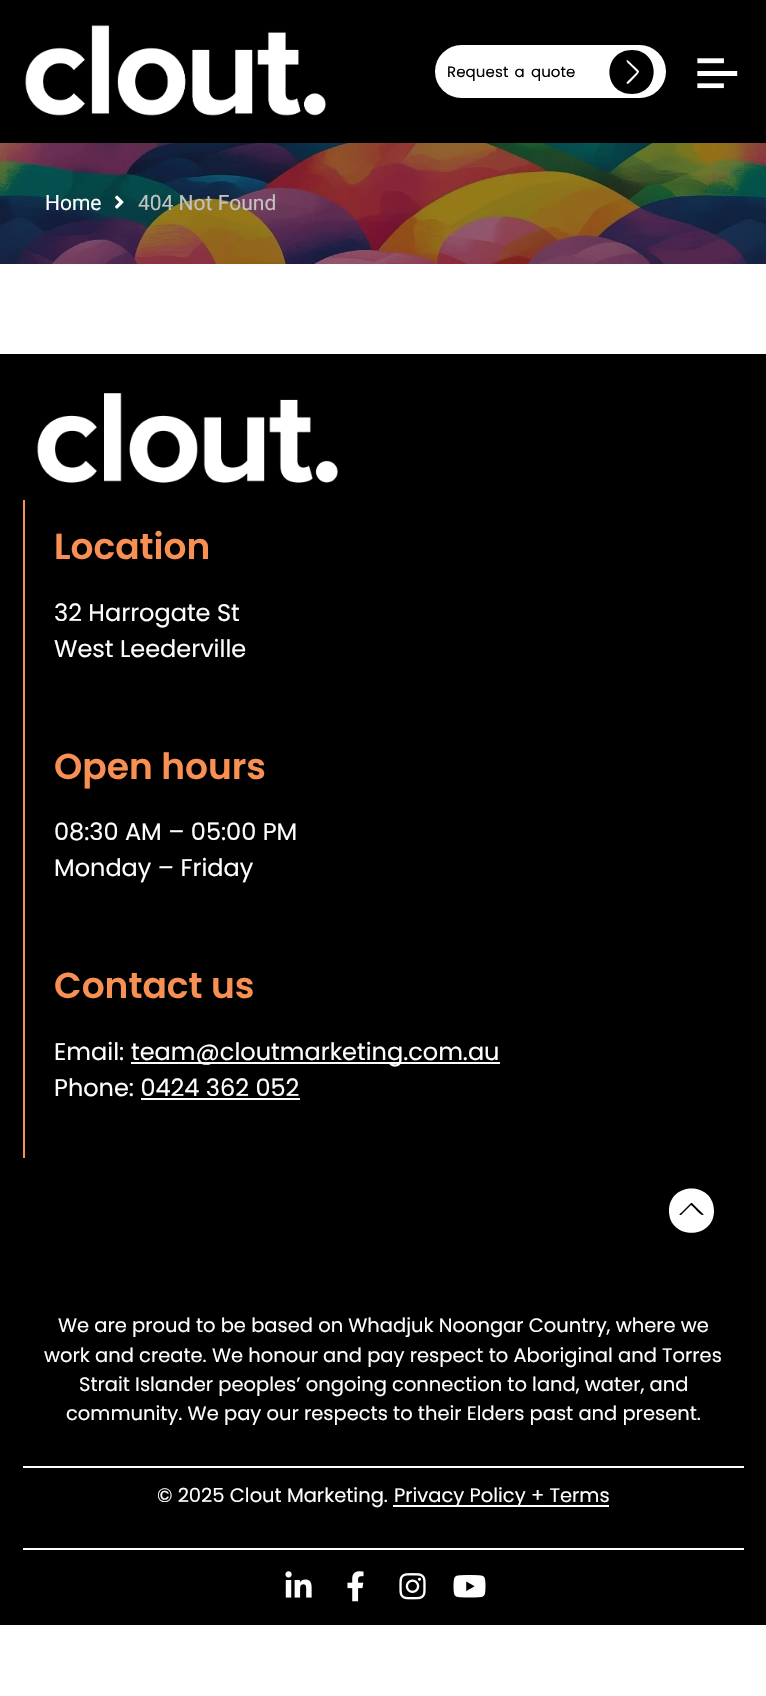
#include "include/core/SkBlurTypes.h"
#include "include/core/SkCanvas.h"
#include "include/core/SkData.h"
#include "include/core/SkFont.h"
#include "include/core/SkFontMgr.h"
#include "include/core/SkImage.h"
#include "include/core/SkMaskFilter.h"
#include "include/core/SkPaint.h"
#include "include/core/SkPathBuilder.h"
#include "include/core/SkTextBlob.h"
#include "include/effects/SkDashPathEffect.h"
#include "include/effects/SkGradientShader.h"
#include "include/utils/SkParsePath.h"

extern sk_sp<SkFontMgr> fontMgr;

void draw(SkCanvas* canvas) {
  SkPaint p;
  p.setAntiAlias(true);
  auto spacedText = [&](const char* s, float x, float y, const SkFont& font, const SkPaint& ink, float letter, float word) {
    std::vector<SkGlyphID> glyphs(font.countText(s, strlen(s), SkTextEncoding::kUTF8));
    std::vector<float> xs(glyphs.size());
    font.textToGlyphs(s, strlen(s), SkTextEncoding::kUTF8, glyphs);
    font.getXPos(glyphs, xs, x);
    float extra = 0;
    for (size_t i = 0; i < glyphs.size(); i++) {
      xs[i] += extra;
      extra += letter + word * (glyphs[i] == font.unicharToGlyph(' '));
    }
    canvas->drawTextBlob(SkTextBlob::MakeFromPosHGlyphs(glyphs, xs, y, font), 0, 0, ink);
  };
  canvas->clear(SK_ColorWHITE);
  p.setColor(SK_ColorBLACK);
  canvas->drawRect(SkRect::MakeLTRB(0, 0, 766, 143), p);
  canvas->drawImageRect(SkImages::DeferredFromEncodedData(SkData::MakeFromFileName("images/1.png")), SkRect::MakeLTRB(25, 25, 326, 116), SkSamplingOptions());
  p.setColor(SK_ColorWHITE);
  canvas->drawRoundRect(SkRect::MakeLTRB(435, 45, 666, 98), 26.5f, 26.5f, p);
  p.setColor(SK_ColorBLACK);
  canvas->drawPath(SkPathBuilder().moveTo(632, 50).cubicTo(661, 50, 661, 94, 632, 94).cubicTo(602, 94, 602, 50, 632, 50).close().moveTo(627, 82).cubicTo(626, 83, 627, 84, 628, 84).cubicTo(628, 84, 640, 73, 639, 71).cubicTo(638, 70, 628, 60, 627, 60).cubicTo(625, 61, 630, 65, 630, 65).lineTo(637, 72).close().detach(), p);
  canvas->drawImageRect(SkImages::DeferredFromEncodedData(SkData::MakeFromFileName("images/2.png")), SkRect::MakeLTRB(697, 58, 738, 89), SkSamplingOptions());
  canvas->drawImageRect(SkImages::DeferredFromEncodedData(SkData::MakeFromFileName("images/3.png")), SkRect::MakeLTRB(0, 143, 766, 264), SkSamplingOptions());
  canvas->drawImageRect(SkImages::DeferredFromEncodedData(SkData::MakeFromFileName("images/4.png")), SkRect::MakeLTRB(115, 195, 124, 209), SkSamplingOptions());
  canvas->drawRect(SkRect::MakeLTRB(0, 354, 766, 1625), p);
  canvas->drawImageRect(SkImages::DeferredFromEncodedData(SkData::MakeFromFileName("images/5.png")), SkRect::MakeLTRB(37, 393, 338, 483), SkSamplingOptions());
  p.setColor(SkColorSetRGB(247, 144, 82));
  canvas->drawRect(SkRect::MakeLTRB(23, 500, 25, 1158), p);
  p.setColor(SK_ColorWHITE);
  canvas->drawRect(SkRect::MakeLTRB(131, 1062, 500, 1064), p);
  canvas->drawRect(SkRect::MakeLTRB(141, 1098, 300, 1100), p);
  canvas->drawPath(SkPathBuilder().moveTo(669, 1211).cubicTo(669, 1240, 714, 1240, 714, 1211).cubicTo(714, 1181, 669, 1181, 669, 1211).close().moveTo(692, 1203).lineTo(699, 1210).cubicTo(702, 1213, 705, 1215, 703, 1215).cubicTo(701, 1216, 693, 1206, 691, 1205).lineTo(681, 1215).lineTo(680, 1215).cubicTo(678, 1215, 682, 1212, 682, 1212).lineTo(691, 1203).close().detach(), p);
  canvas->drawRect(SkRect::MakeLTRB(23, 1466, 744, 1468), p);
  canvas->drawRect(SkRect::MakeLTRB(393, 1505, 609, 1507), p);
  canvas->drawRect(SkRect::MakeLTRB(23, 1548, 744, 1550), p);
  canvas->drawImageRect(SkImages::DeferredFromEncodedData(SkData::MakeFromFileName("images/6.png")), SkRect::MakeLTRB(285, 1571, 312, 1598), SkSamplingOptions());
  canvas->drawImageRect(SkImages::DeferredFromEncodedData(SkData::MakeFromFileName("images/7.png")), SkRect::MakeLTRB(347, 1571, 364, 1602), SkSamplingOptions());
  canvas->drawImageRect(SkImages::DeferredFromEncodedData(SkData::MakeFromFileName("images/8.png")), SkRect::MakeLTRB(399, 1573, 426, 1600), SkSamplingOptions());
  canvas->drawImageRect(SkImages::DeferredFromEncodedData(SkData::MakeFromFileName("images/9.png")), SkRect::MakeLTRB(453, 1575, 486, 1598), SkSamplingOptions());
  SkFont font1(fontMgr->matchFamilyStyle("Poppins", SkFontStyle::Normal()), 15);
  font1.setSubpixel(true);
  p.setColor(SK_ColorBLACK);
  spacedText("Request a quote", 447, 77, font1, p, 0.1f, 2);
  SkFont font2(fontMgr->matchFamilyStyle("Roboto", SkFontStyle::Normal()), 21);
  font2.setSubpixel(true);
  p.setColor(SK_ColorWHITE);
  canvas->drawString("Home", 45, 210, font2, p);
  p.setColor(SkColorSetRGB(194, 194, 194));
  canvas->drawString("404 Not Found", 138, 210, font2, p);
  SkFont font3(fontMgr->matchFamilyStyle("Poppins", SkFontStyle(600, SkFontStyle::kNormal_Width, SkFontStyle::kUpright_Slant)), 36);
  font3.setSubpixel(true);
  p.setColor(SkColorSetRGB(247, 144, 82));
  canvas->drawString("Location", 54, 559, font3, p);
  SkFont font4(fontMgr->matchFamilyStyle("Poppins", SkFontStyle::Normal()), 24);
  font4.setSubpixel(true);
  p.setColor(SK_ColorWHITE);
  canvas->drawString("32 Harrogate St", 54, 621, font4, p);
  canvas->drawString("West Leederville", 54, 657, font4, p);
  p.setColor(SkColorSetRGB(247, 144, 82));
  canvas->drawString("Open hours", 54, 779, font3, p);
  p.setColor(SK_ColorWHITE);
  canvas->drawString("08:30 AM – 05:00 PM", 54, 840, font4, p);
  canvas->drawString("Monday – Friday", 54, 876, font4, p);
  p.setColor(SkColorSetRGB(247, 144, 82));
  canvas->drawString("Contact us", 54, 998, font3, p);
  p.setColor(SK_ColorWHITE);
  canvas->drawString("Email:", 54, 1060, font4, p);
  canvas->drawString("team@cloutmarketing.com.au", 131, 1060, font4, p);
  canvas->drawString("Phone: 0424 362 052", 54, 1096, font4, p);
  SkFont font5(fontMgr->matchFamilyStyle("Poppins", SkFontStyle::Normal()), 19.5f);
  font5.setSubpixel(true);
  canvas->drawString("We are proud to be based on Whadjuk Noongar Country, where we", 58, 1332, font5, p);
  canvas->drawString("work and create. We honour and pay respect to Aboriginal and Torres", 44, 1362, font5, p);
  canvas->drawString("Strait Islander peoples’ ongoing connection to land, water, and", 79, 1391, font5, p);
  canvas->drawString("community. We pay our respects to their Elders past and present.", 66, 1420, font5, p);
  canvas->drawString("© 2025 Clout Marketing.", 157, 1502, font5, p);
  canvas->drawString("Privacy Policy + Terms", 394, 1502, font5, p);
}
